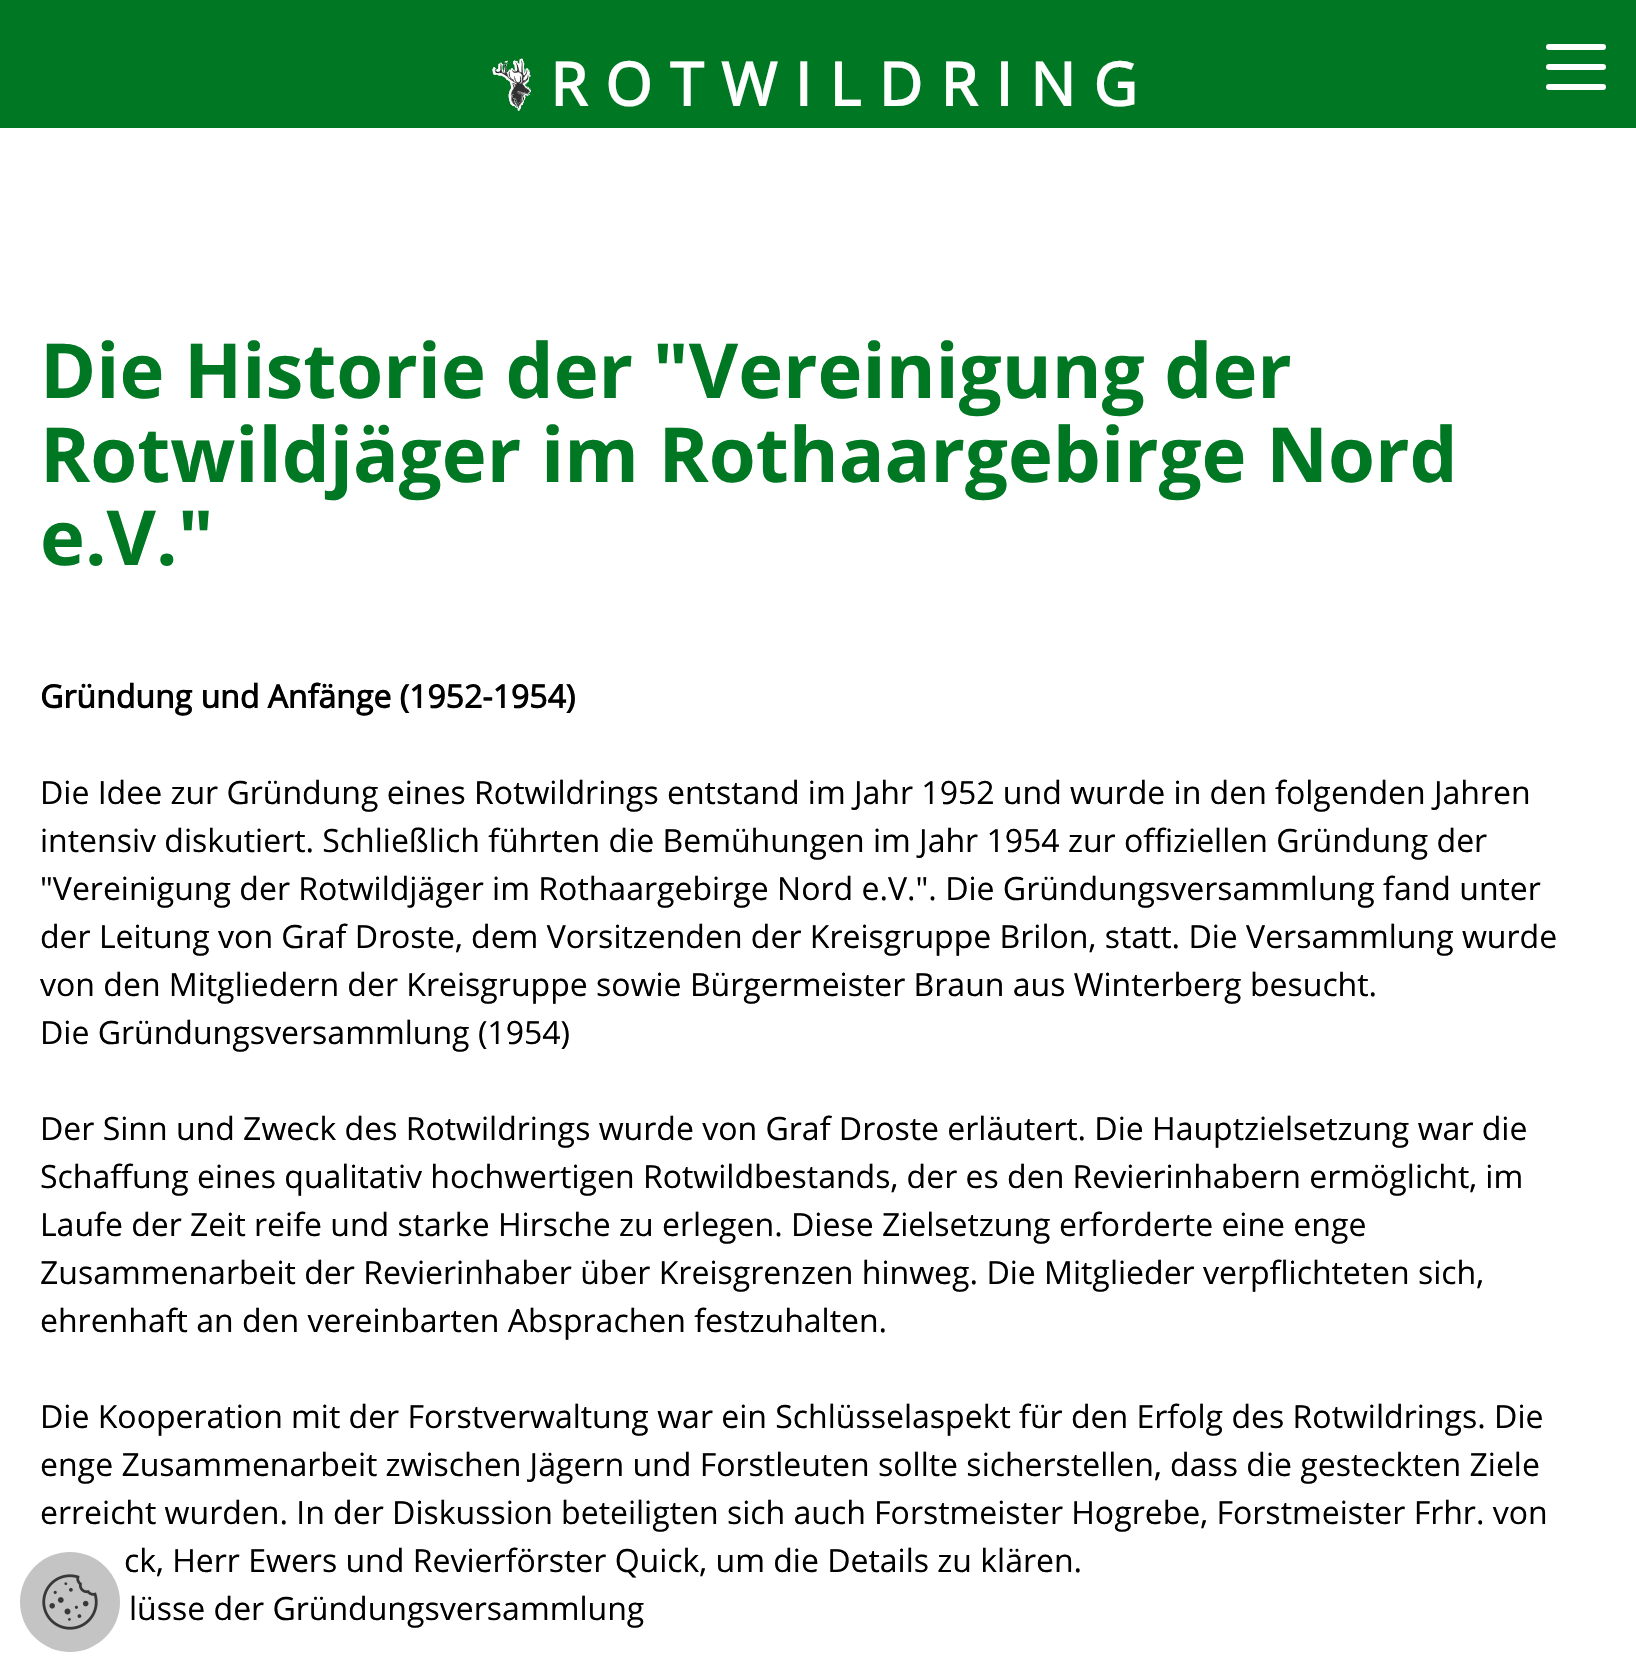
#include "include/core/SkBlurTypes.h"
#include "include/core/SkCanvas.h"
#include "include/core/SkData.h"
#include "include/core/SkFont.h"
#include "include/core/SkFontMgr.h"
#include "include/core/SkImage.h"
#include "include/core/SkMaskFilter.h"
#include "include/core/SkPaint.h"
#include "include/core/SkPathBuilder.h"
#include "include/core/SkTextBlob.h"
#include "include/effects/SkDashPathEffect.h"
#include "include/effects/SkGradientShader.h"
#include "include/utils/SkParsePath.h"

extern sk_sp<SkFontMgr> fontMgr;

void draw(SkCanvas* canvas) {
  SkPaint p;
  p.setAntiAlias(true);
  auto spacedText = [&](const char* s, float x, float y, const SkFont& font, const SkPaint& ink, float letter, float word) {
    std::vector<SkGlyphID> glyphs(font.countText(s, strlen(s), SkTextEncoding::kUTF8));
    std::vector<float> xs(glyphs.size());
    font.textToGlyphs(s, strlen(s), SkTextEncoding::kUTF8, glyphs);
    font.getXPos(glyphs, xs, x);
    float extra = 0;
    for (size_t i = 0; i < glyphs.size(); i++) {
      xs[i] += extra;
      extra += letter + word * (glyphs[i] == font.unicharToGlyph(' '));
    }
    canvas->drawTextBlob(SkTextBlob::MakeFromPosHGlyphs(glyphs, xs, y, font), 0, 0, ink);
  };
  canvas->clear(SK_ColorWHITE);
  p.setColor(SkColorSetRGB(0, 119, 35));
  canvas->drawRect(SkRect::MakeLTRB(0, 0, 1636, 128), p);
  canvas->drawImageRect(SkImages::DeferredFromEncodedData(SkData::MakeFromFileName("images/1.png")), SkRect::MakeLTRB(492, 58, 531, 111), SkSamplingOptions());
  p.setColor(SK_ColorWHITE);
  canvas->drawRoundRect(SkRect::MakeLTRB(1546, 44, 1606, 50), 3, 3, p);
  canvas->drawRoundRect(SkRect::MakeLTRB(1546, 64, 1606, 70), 3, 3, p);
  canvas->drawRoundRect(SkRect::MakeLTRB(1546, 84, 1606, 90), 3, 3, p);
  p.setColor(SkColorSetRGB(196, 196, 196));
  canvas->drawCircle(70, 1602, 50, p);
  canvas->drawImageRect(SkImages::DeferredFromEncodedData(SkData::MakeFromFileName("images/2.png")), SkRect::MakeLTRB(42, 1574, 98, 1630), SkSamplingOptions());
  SkFont font1(fontMgr->matchFamilyStyle("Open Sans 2", SkFontStyle::Bold()), 60);
  font1.setSubpixel(true);
  p.setColor(SK_ColorWHITE);
  spacedText("ROTWILDRING", 550, 106, font1, p, 18, 0);
  SkFont font2(fontMgr->matchFamilyStyle("Open Sans", SkFontStyle::Bold()), 76);
  font2.setSubpixel(true);
  p.setColor(SkColorSetRGB(0, 119, 35));
  canvas->drawString("Die Historie der \"Vereinigung der", 40, 398, font2, p);
  canvas->drawString("Rotwildjäger im Rothaargebirge Nord", 40, 482, font2, p);
  canvas->drawString("e.V.\"", 40, 565, font2, p);
  SkFont font3(fontMgr->matchFamilyStyle("Open Sans 2", SkFontStyle::Bold()), 32);
  font3.setSubpixel(true);
  p.setColor(SK_ColorBLACK);
  canvas->drawString("Gründung und Anfänge (1952-1954)", 40, 708, font3, p);
  SkFont font4(fontMgr->matchFamilyStyle("Open Sans", SkFontStyle::Normal()), 32);
  font4.setSubpixel(true);
  canvas->drawString("Die Idee zur Gründung eines Rotwildrings entstand im Jahr 1952 und wurde in den folgenden Jahren", 40, 804, font4, p);
  canvas->drawString("intensiv diskutiert. Schließlich führten die Bemühungen im Jahr 1954 zur offiziellen Gründung der", 40, 852, font4, p);
  canvas->drawString("\"Vereinigung der Rotwildjäger im Rothaargebirge Nord e.V.\". Die Gründungsversammlung fand unter", 40, 900, font4, p);
  canvas->drawString("der Leitung von Graf Droste, dem Vorsitzenden der Kreisgruppe Brilon, statt. Die Versammlung wurde", 40, 948, font4, p);
  canvas->drawString("von den Mitgliedern der Kreisgruppe sowie Bürgermeister Braun aus Winterberg besucht.", 40, 996, font4, p);
  canvas->drawString("Die Gründungsversammlung (1954)", 40, 1044, font4, p);
  canvas->drawString("Der Sinn und Zweck des Rotwildrings wurde von Graf Droste erläutert. Die Hauptzielsetzung war die", 40, 1140, font4, p);
  canvas->drawString("Schaffung eines qualitativ hochwertigen Rotwildbestands, der es den Revierinhabern ermöglicht, im", 40, 1188, font4, p);
  canvas->drawString("Laufe der Zeit reife und starke Hirsche zu erlegen. Diese Zielsetzung erforderte eine enge", 40, 1236, font4, p);
  canvas->drawString("Zusammenarbeit der Revierinhaber über Kreisgrenzen hinweg. Die Mitglieder verpflichteten sich,", 40, 1284, font4, p);
  canvas->drawString("ehrenhaft an den vereinbarten Absprachen festzuhalten.", 40, 1332, font4, p);
  canvas->drawString("Die Kooperation mit der Forstverwaltung war ein Schlüsselaspekt für den Erfolg des Rotwildrings. Die", 40, 1428, font4, p);
  canvas->drawString("enge Zusammenarbeit zwischen Jägern und Forstleuten sollte sicherstellen, dass die gesteckten Ziele", 40, 1476, font4, p);
  canvas->drawString("erreicht wurden. In der Diskussion beteiligten sich auch Forstmeister Hogrebe, Forstmeister Frhr. von", 40, 1524, font4, p);
  canvas->drawString("ck, Herr Ewers und Revierförster Quick, um die Details zu klären.", 124, 1572, font4, p);
  canvas->drawString("lüsse der Gründungsversammlung", 129, 1620, font4, p);
}
